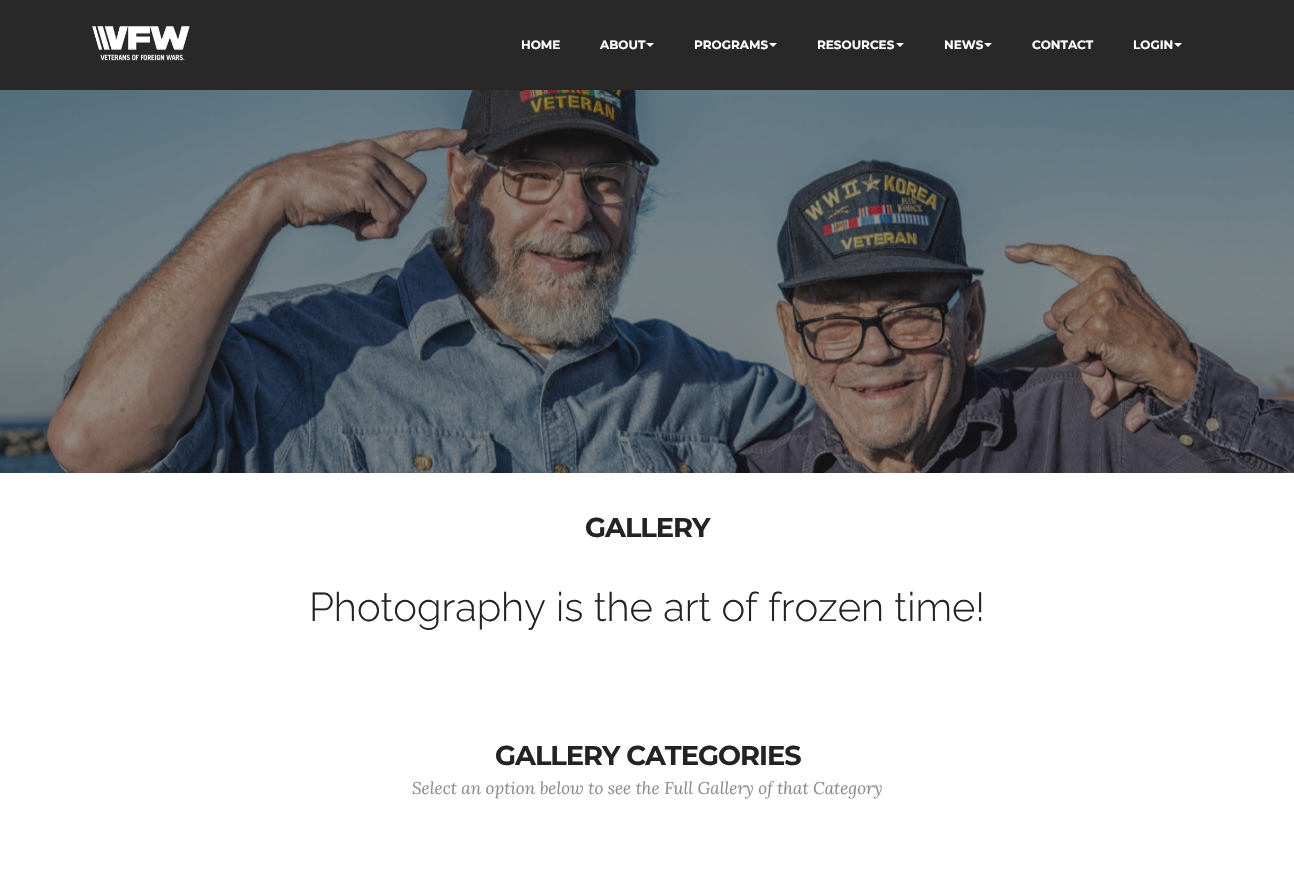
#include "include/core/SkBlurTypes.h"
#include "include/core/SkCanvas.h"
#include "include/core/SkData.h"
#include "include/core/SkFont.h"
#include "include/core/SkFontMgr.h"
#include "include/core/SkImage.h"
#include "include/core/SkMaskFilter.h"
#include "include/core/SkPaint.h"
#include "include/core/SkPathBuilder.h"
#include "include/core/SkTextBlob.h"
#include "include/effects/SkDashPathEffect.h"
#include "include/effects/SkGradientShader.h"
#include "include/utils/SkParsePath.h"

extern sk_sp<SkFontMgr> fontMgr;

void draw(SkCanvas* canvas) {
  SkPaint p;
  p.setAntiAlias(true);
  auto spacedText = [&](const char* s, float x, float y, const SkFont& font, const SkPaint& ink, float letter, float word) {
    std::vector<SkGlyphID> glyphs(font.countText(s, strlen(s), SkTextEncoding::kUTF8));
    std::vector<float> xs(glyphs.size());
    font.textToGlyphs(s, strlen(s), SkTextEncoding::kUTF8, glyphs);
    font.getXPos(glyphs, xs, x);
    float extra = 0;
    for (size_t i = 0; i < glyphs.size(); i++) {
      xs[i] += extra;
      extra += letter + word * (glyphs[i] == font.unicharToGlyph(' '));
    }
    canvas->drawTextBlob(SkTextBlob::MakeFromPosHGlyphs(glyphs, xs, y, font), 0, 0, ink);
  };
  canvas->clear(SK_ColorWHITE);
  p.setColor(SkColorSetRGB(40, 40, 40));
  canvas->drawRect(SkRect::MakeLTRB(0, 0, 1294, 90), p);
  canvas->drawImageRect(SkImages::DeferredFromEncodedData(SkData::MakeFromFileName("images/1.png")), SkRect::MakeLTRB(92, 26, 190, 61), SkSamplingOptions());
  p.setColor(SK_ColorWHITE);
  canvas->drawPath(SkPathBuilder().moveTo(646, 43).lineTo(654, 43).lineTo(650, 47).close().detach(), p);
  canvas->drawPath(SkPathBuilder().moveTo(769, 43).lineTo(777, 43).lineTo(773, 47).close().detach(), p);
  canvas->drawPath(SkPathBuilder().moveTo(896, 43).lineTo(904, 43).lineTo(900, 47).close().detach(), p);
  canvas->drawPath(SkPathBuilder().moveTo(984, 43).lineTo(992, 43).lineTo(988, 47).close().detach(), p);
  canvas->drawPath(SkPathBuilder().moveTo(1174, 43).lineTo(1182, 43).lineTo(1178, 47).close().detach(), p);
  canvas->drawImageRect(SkImages::DeferredFromEncodedData(SkData::MakeFromFileName("images/2.png")), SkRect::MakeLTRB(0, 90, 1294, 473), SkSamplingOptions());
  SkFont font1(fontMgr->matchFamilyStyle("Montserrat", SkFontStyle::Bold()), 12);
  font1.setSubpixel(true);
  canvas->drawString("HOME", 521, 49, font1, p);
  canvas->drawString("ABOUT", 600, 49, font1, p);
  canvas->drawString("PROGRAMS", 694, 49, font1, p);
  canvas->drawString("RESOURCES", 817, 49, font1, p);
  canvas->drawString("NEWS", 944, 49, font1, p);
  canvas->drawString("CONTACT", 1032, 49, font1, p);
  canvas->drawString("LOGIN", 1133, 49, font1, p);
  SkFont font2(fontMgr->matchFamilyStyle("Montserrat", SkFontStyle::Bold()), 27.25f);
  font2.setSubpixel(true);
  p.setColor(SkColorSetRGB(35, 35, 35));
  spacedText("GALLERY", 585, 537, font2, p, -1, 0);
  SkFont font3(fontMgr->matchFamilyStyle("Raleway", SkFontStyle(300, SkFontStyle::kNormal_Width, SkFontStyle::kUpright_Slant)), 40);
  font3.setSubpixel(true);
  canvas->drawString("Photography is the art of frozen time!", 309, 621, font3, p);
  spacedText("GALLERY CATEGORIES", 495, 765, font2, p, -1, 0);
  SkFont font4(fontMgr->matchFamilyStyle("Lora", SkFontStyle::Italic()), 17);
  font4.setSubpixel(true);
  p.setColor(SkColorSetRGB(140, 140, 140));
  canvas->drawString("Select an option below to see the Full Gallery of that Category", 412, 794, font4, p);
}
